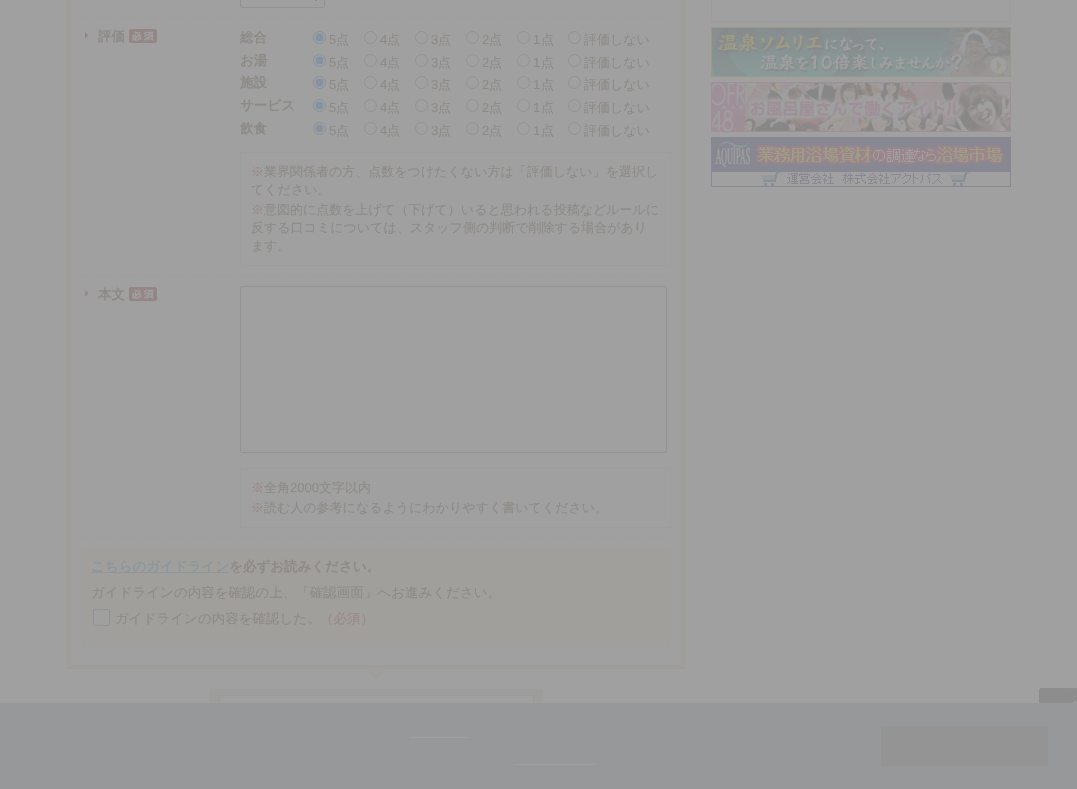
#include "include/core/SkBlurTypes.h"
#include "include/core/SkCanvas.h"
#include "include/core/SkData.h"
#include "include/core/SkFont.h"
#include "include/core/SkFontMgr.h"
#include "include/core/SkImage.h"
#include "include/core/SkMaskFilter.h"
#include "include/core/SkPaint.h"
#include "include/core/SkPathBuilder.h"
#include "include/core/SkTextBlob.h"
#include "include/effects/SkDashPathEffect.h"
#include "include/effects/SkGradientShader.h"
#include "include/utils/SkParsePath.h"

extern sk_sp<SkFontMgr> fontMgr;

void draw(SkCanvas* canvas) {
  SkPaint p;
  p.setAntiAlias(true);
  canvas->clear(SkColorSetRGB(160, 160, 160));
  canvas->drawImageRect(SkImages::DeferredFromEncodedData(SkData::MakeFromFileName("images/1.png")), SkRect::MakeLTRB(66, 0, 686, 662), SkSamplingOptions());
  canvas->drawImageRect(SkImages::DeferredFromEncodedData(SkData::MakeFromFileName("images/2.png")), SkRect::MakeLTRB(66, 662, 686, 679), SkSamplingOptions());
  canvas->drawImageRect(SkImages::DeferredFromEncodedData(SkData::MakeFromFileName("images/3.png")), SkRect::MakeLTRB(81, 17, 238, 18), SkSamplingOptions());
  canvas->drawImageRect(SkImages::DeferredFromEncodedData(SkData::MakeFromFileName("images/4.png")), SkRect::MakeLTRB(240, 17, 670, 18), SkSamplingOptions());
  p.setStyle(SkPaint::kStroke_Style);
  p.setStrokeWidth(1);
  p.setColor(SkColorSetRGB(146, 146, 146));
  canvas->drawRoundRect(SkRect::MakeLTRB(240.5f, -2.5f, 324.5f, 7.5f), 1.5f, 1.5f, p);
  p.setStrokeWidth(2);
  p.setColor(SkColorSetRGB(134, 134, 134));
  canvas->drawPath(SkPathBuilder().moveTo(312, -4).lineTo(316, 0).lineTo(320, -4).detach(), p);
  canvas->drawImageRect(SkImages::DeferredFromEncodedData(SkData::MakeFromFileName("images/3.png")), SkRect::MakeLTRB(81, 275, 238, 276), SkSamplingOptions());
  canvas->drawImageRect(SkImages::DeferredFromEncodedData(SkData::MakeFromFileName("images/5.png")), SkRect::MakeLTRB(85, 32, 89, 39), SkSamplingOptions());
  canvas->drawImageRect(SkImages::DeferredFromEncodedData(SkData::MakeFromFileName("images/6.png")), SkRect::MakeLTRB(129, 29, 157, 43), SkSamplingOptions());
  canvas->drawImageRect(SkImages::DeferredFromEncodedData(SkData::MakeFromFileName("images/4.png")), SkRect::MakeLTRB(240, 275, 670, 276), SkSamplingOptions());
  p.setStrokeWidth(1);
  p.setColor(SkColorSetRGB(134, 146, 160));
  canvas->drawCircle(319.5f, 37.5f, 6, p);
  p.setStyle(SkPaint::kFill_Style);
  canvas->drawCircle(319.5f, 37.5f, 4, p);
  p.setStyle(SkPaint::kStroke_Style);
  p.setColor(SkColorSetRGB(146, 146, 146));
  canvas->drawCircle(370.5f, 37.5f, 6, p);
  canvas->drawCircle(421.5f, 37.5f, 6, p);
  canvas->drawCircle(472.5f, 37.5f, 6, p);
  canvas->drawCircle(523.5f, 37.5f, 6, p);
  canvas->drawCircle(574.5f, 37.5f, 6, p);
  p.setColor(SkColorSetRGB(134, 146, 160));
  canvas->drawCircle(319.5f, 60.5f, 6, p);
  p.setStyle(SkPaint::kFill_Style);
  canvas->drawCircle(319.5f, 60.5f, 4, p);
  p.setStyle(SkPaint::kStroke_Style);
  p.setColor(SkColorSetRGB(146, 146, 146));
  canvas->drawCircle(370.5f, 60.5f, 6, p);
  canvas->drawCircle(421.5f, 60.5f, 6, p);
  canvas->drawCircle(472.5f, 60.5f, 6, p);
  canvas->drawCircle(523.5f, 60.5f, 6, p);
  canvas->drawCircle(574.5f, 60.5f, 6, p);
  p.setColor(SkColorSetRGB(134, 146, 160));
  canvas->drawCircle(319.5f, 82.5f, 6, p);
  p.setStyle(SkPaint::kFill_Style);
  canvas->drawCircle(319.5f, 82.5f, 4, p);
  p.setStyle(SkPaint::kStroke_Style);
  p.setColor(SkColorSetRGB(146, 146, 146));
  canvas->drawCircle(370.5f, 82.5f, 6, p);
  canvas->drawCircle(421.5f, 82.5f, 6, p);
  canvas->drawCircle(472.5f, 82.5f, 6, p);
  canvas->drawCircle(523.5f, 82.5f, 6, p);
  canvas->drawCircle(574.5f, 82.5f, 6, p);
  p.setColor(SkColorSetRGB(134, 146, 160));
  canvas->drawCircle(319.5f, 105.5f, 6, p);
  p.setStyle(SkPaint::kFill_Style);
  canvas->drawCircle(319.5f, 105.5f, 4, p);
  p.setStyle(SkPaint::kStroke_Style);
  p.setColor(SkColorSetRGB(146, 146, 146));
  canvas->drawCircle(370.5f, 105.5f, 6, p);
  canvas->drawCircle(421.5f, 105.5f, 6, p);
  canvas->drawCircle(472.5f, 105.5f, 6, p);
  canvas->drawCircle(523.5f, 105.5f, 6, p);
  canvas->drawCircle(574.5f, 105.5f, 6, p);
  p.setColor(SkColorSetRGB(134, 146, 160));
  canvas->drawCircle(319.5f, 128.5f, 6, p);
  p.setStyle(SkPaint::kFill_Style);
  canvas->drawCircle(319.5f, 128.5f, 4, p);
  p.setStyle(SkPaint::kStroke_Style);
  p.setColor(SkColorSetRGB(146, 146, 146));
  canvas->drawCircle(370.5f, 128.5f, 6, p);
  canvas->drawCircle(421.5f, 128.5f, 6, p);
  canvas->drawCircle(472.5f, 128.5f, 6, p);
  canvas->drawCircle(523.5f, 128.5f, 6, p);
  canvas->drawCircle(574.5f, 128.5f, 6, p);
  p.setColor(SkColorSetRGB(157, 157, 157));
  canvas->drawRect(SkRect::MakeLTRB(240.5f, 152.5f, 670.5f, 265.5f), p);
  canvas->drawImageRect(SkImages::DeferredFromEncodedData(SkData::MakeFromFileName("images/3.png")), SkRect::MakeLTRB(81, 537, 238, 538), SkSamplingOptions());
  canvas->drawImageRect(SkImages::DeferredFromEncodedData(SkData::MakeFromFileName("images/5.png")), SkRect::MakeLTRB(85, 290, 89, 297), SkSamplingOptions());
  canvas->drawImageRect(SkImages::DeferredFromEncodedData(SkData::MakeFromFileName("images/6.png")), SkRect::MakeLTRB(129, 287, 157, 301), SkSamplingOptions());
  canvas->drawImageRect(SkImages::DeferredFromEncodedData(SkData::MakeFromFileName("images/4.png")), SkRect::MakeLTRB(240, 537, 670, 538), SkSamplingOptions());
  p.setColor(SkColorSetRGB(146, 146, 146));
  canvas->drawRoundRect(SkRect::MakeLTRB(240.5f, 286.5f, 666.5f, 452.5f), 1.5f, 1.5f, p);
  p.setColor(SkColorSetRGB(157, 157, 157));
  canvas->drawRect(SkRect::MakeLTRB(240.5f, 468.5f, 670.5f, 527.5f), p);
  p.setStyle(SkPaint::kFill_Style);
  p.setColor(SkColorSetRGB(160, 159, 156));
  canvas->drawRect(SkRect::MakeLTRB(81, 548, 671, 646), p);
  p.setColor(SkColorSetRGB(157, 157, 154));
  canvas->drawRect(SkRect::MakeLTRB(81, 646, 671, 647), p);
  p.setColor(SkColorSetRGB(138, 151, 157));
  canvas->drawRect(SkRect::MakeLTRB(91, 572, 229, 573), p);
  p.setColor(SkColorSetRGB(160, 160, 160));
  canvas->drawRoundRect(SkRect::MakeLTRB(93.5f, 609.5f, 109.5f, 625.5f), 1.5f, 1.5f, p);
  p.setStyle(SkPaint::kStroke_Style);
  p.setColor(SkColorSetRGB(146, 146, 146));
  canvas->drawRoundRect(SkRect::MakeLTRB(93.5f, 609.5f, 109.5f, 625.5f), 1.5f, 1.5f, p);
  canvas->drawImageRect(SkImages::DeferredFromEncodedData(SkData::MakeFromFileName("images/7.png")), SkRect::MakeLTRB(210, 689, 543, 703), SkSamplingOptions());
  p.setColor(SkColorSetRGB(156, 156, 156));
  canvas->drawRect(SkRect::MakeLTRB(711.5f, -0.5f, 1010.5f, 21.5f), p);
  canvas->drawImageRect(SkImages::DeferredFromEncodedData(SkData::MakeFromFileName("images/8.png")), SkRect::MakeLTRB(711, 27, 1011, 77), SkSamplingOptions());
  canvas->drawImageRect(SkImages::DeferredFromEncodedData(SkData::MakeFromFileName("images/9.png")), SkRect::MakeLTRB(711, 82, 1011, 132), SkSamplingOptions());
  canvas->drawImageRect(SkImages::DeferredFromEncodedData(SkData::MakeFromFileName("images/10.png")), SkRect::MakeLTRB(711, 137, 1011, 187), SkSamplingOptions());
  canvas->drawImageRect(SkImages::DeferredFromEncodedData(SkData::MakeFromFileName("images/11.png")), SkRect::MakeLTRB(1039, 688, 1077, 703), SkSamplingOptions());
  p.setStyle(SkPaint::kFill_Style);
  p.setColor(SkColorSetRGB(151, 152, 153));
  canvas->drawRect(SkRect::MakeLTRB(0, 703, 1077, 789), p);
  p.setColor(SkColorSetRGB(160, 160, 160));
  canvas->drawRect(SkRect::MakeLTRB(410, 737, 469, 738), p);
  p.setColor(SkColorSetRGB(158, 158, 158));
  canvas->drawRect(SkRect::MakeLTRB(514, 764, 596, 765), p);
  p.setColor(SkColorSetRGB(148, 148, 149));
  canvas->drawRect(SkRect::MakeLTRB(881, 726, 1048, 766), p);
  SkFont font1(fontMgr->matchFamilyStyle("WenQuanYi Zen Hei", SkFontStyle::Bold()), 13.5f);
  font1.setSubpixel(true);
  p.setColor(SkColorSetRGB(141, 138, 134));
  canvas->drawString("評価", 98, 41, font1, p);
  canvas->drawString("総合", 240, 42, font1, p);
  SkFont font2(fontMgr->matchFamilyStyle("Liberation Sans", SkFontStyle::Normal()), 13);
  font2.setSubpixel(true);
  canvas->drawString("5", 329, 44, font2, p);
  SkFont font3(fontMgr->matchFamilyStyle("WenQuanYi Zen Hei", SkFontStyle(500, SkFontStyle::kNormal_Width, SkFontStyle::kUpright_Slant)), 13);
  font3.setSubpixel(true);
  canvas->drawString("点", 336, 44, font3, p);
  canvas->drawString("4", 380, 44, font2, p);
  canvas->drawString("点", 387, 44, font3, p);
  canvas->drawString("3", 431, 44, font2, p);
  canvas->drawString("点", 438, 44, font3, p);
  canvas->drawString("2", 482, 44, font2, p);
  canvas->drawString("点", 489, 44, font3, p);
  canvas->drawString("1", 533, 44, font2, p);
  canvas->drawString("点", 541, 44, font3, p);
  canvas->drawString("評価しない", 584, 44, font3, p);
  canvas->drawString("お湯", 240, 65, font1, p);
  canvas->drawString("5", 329, 67, font2, p);
  canvas->drawString("点", 336, 67, font3, p);
  canvas->drawString("4", 380, 67, font2, p);
  canvas->drawString("点", 387, 67, font3, p);
  canvas->drawString("3", 431, 67, font2, p);
  canvas->drawString("点", 438, 67, font3, p);
  canvas->drawString("2", 482, 67, font2, p);
  canvas->drawString("点", 489, 67, font3, p);
  canvas->drawString("1", 533, 67, font2, p);
  canvas->drawString("点", 541, 67, font3, p);
  canvas->drawString("評価しない", 584, 67, font3, p);
  canvas->drawString("施設", 240, 87, font1, p);
  canvas->drawString("5", 329, 89, font2, p);
  canvas->drawString("点", 336, 89, font3, p);
  canvas->drawString("4", 380, 89, font2, p);
  canvas->drawString("点", 387, 89, font3, p);
  canvas->drawString("3", 431, 89, font2, p);
  canvas->drawString("点", 438, 89, font3, p);
  canvas->drawString("2", 482, 89, font2, p);
  canvas->drawString("点", 489, 89, font3, p);
  canvas->drawString("1", 533, 89, font2, p);
  canvas->drawString("点", 541, 89, font3, p);
  canvas->drawString("評価しない", 584, 89, font3, p);
  canvas->drawString("サービス", 240, 110, font1, p);
  canvas->drawString("5", 329, 112, font2, p);
  canvas->drawString("点", 336, 112, font3, p);
  canvas->drawString("4", 380, 112, font2, p);
  canvas->drawString("点", 387, 112, font3, p);
  canvas->drawString("3", 431, 112, font2, p);
  canvas->drawString("点", 438, 112, font3, p);
  canvas->drawString("2", 482, 112, font2, p);
  canvas->drawString("点", 489, 112, font3, p);
  canvas->drawString("1", 533, 112, font2, p);
  canvas->drawString("点", 541, 112, font3, p);
  canvas->drawString("評価しない", 584, 112, font3, p);
  canvas->drawString("飲食", 240, 133, font1, p);
  canvas->drawString("5", 329, 135, font2, p);
  canvas->drawString("点", 336, 135, font3, p);
  canvas->drawString("4", 380, 135, font2, p);
  canvas->drawString("点", 387, 135, font3, p);
  canvas->drawString("3", 431, 135, font2, p);
  canvas->drawString("点", 438, 135, font3, p);
  canvas->drawString("2", 482, 135, font2, p);
  canvas->drawString("点", 489, 135, font3, p);
  canvas->drawString("1", 533, 135, font2, p);
  canvas->drawString("点", 541, 135, font3, p);
  canvas->drawString("評価しない", 584, 135, font3, p);
  p.setColor(SkColorSetRGB(155, 134, 134));
  canvas->drawString("※", 251, 176, font3, p);
  p.setColor(SkColorSetRGB(141, 138, 134));
  canvas->drawString("業界関係者の方、点数をつけたくない方は「評価しない」を選択し", 264, 176, font3, p);
  canvas->drawString("てください。", 251, 194, font3, p);
  p.setColor(SkColorSetRGB(155, 134, 134));
  canvas->drawString("※", 251, 214, font3, p);
  p.setColor(SkColorSetRGB(141, 138, 134));
  canvas->drawString("意図的に点数を上げて（下げて）いると思われる投稿などルールに", 264, 214, font3, p);
  canvas->drawString("反する口コミについては、スタッフ側の判断で削除する場合があり", 251, 232, font3, p);
  canvas->drawString("ます。", 251, 250, font3, p);
  canvas->drawString("本文", 98, 299, font1, p);
  p.setColor(SkColorSetRGB(155, 134, 134));
  canvas->drawString("※", 251, 492, font3, p);
  p.setColor(SkColorSetRGB(141, 138, 134));
  canvas->drawString("全角", 264, 492, font3, p);
  canvas->drawString("2000", 290, 492, font2, p);
  canvas->drawString("文字以内", 319, 492, font3, p);
  p.setColor(SkColorSetRGB(155, 134, 134));
  canvas->drawString("※", 251, 512, font3, p);
  p.setColor(SkColorSetRGB(141, 138, 134));
  canvas->drawString("読む人の参考になるようにわかりやすく書いてください。", 264, 512, font3, p);
  p.setColor(SkColorSetRGB(138, 151, 157));
  canvas->drawString("こちらのガイドライン", 91, 571, font1, p);
  p.setColor(SkColorSetRGB(141, 138, 134));
  canvas->drawString("を必ずお読みください。", 229, 571, font1, p);
  SkFont font4(fontMgr->matchFamilyStyle("WenQuanYi Zen Hei", SkFontStyle(500, SkFontStyle::kNormal_Width, SkFontStyle::kUpright_Slant)), 13.5f);
  font4.setSubpixel(true);
  canvas->drawString("ガイドラインの内容を確認の上、「確認画面」へお進みください。", 91, 597, font4, p);
  canvas->drawString("ガイドラインの内容を確認した。", 115, 623, font4, p);
  p.setColor(SkColorSetRGB(155, 134, 134));
  canvas->drawString("（必須）", 320, 623, font4, p);
}
